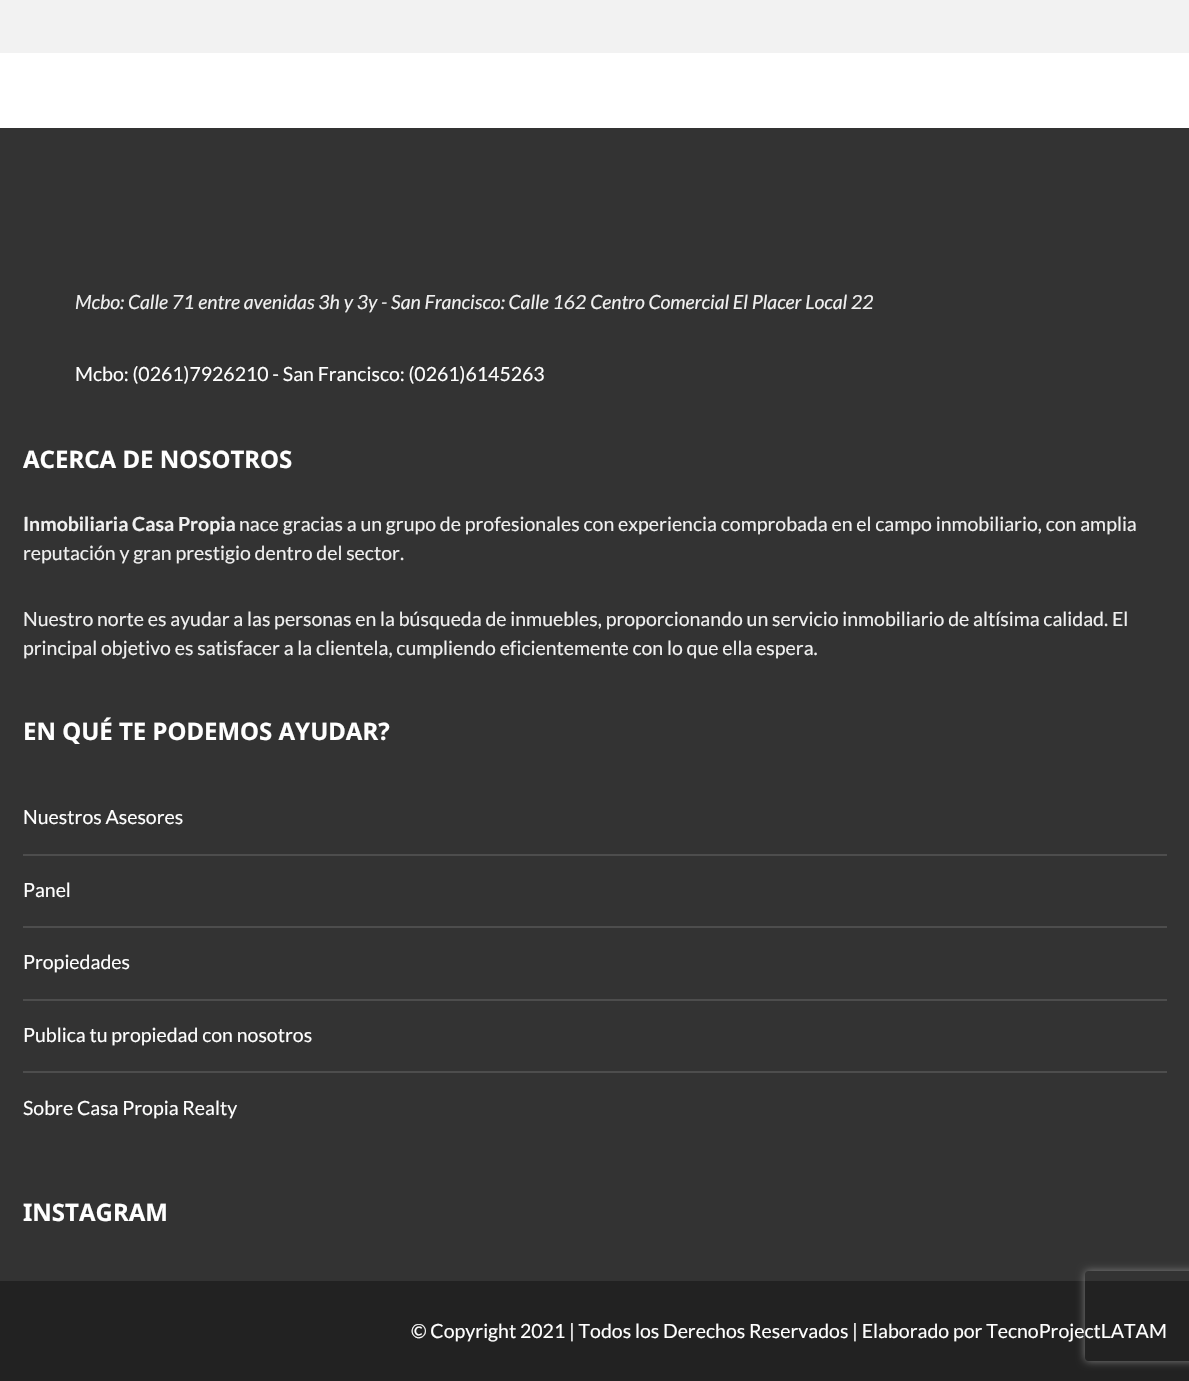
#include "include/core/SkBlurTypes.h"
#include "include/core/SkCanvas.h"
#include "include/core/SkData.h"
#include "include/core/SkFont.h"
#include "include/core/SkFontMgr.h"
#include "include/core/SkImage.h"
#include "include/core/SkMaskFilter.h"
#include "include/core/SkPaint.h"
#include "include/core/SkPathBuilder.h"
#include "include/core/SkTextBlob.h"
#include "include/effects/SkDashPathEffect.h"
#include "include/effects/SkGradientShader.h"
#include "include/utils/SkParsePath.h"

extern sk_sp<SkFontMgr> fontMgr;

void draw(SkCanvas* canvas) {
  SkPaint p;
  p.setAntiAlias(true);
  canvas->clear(SK_ColorWHITE);
  p.setColor(SkColorSetRGB(242, 242, 242));
  canvas->drawRect(SkRect::MakeLTRB(0, 0, 1189, 53), p);
  p.setColor(SkColorSetRGB(51, 51, 51));
  canvas->drawRect(SkRect::MakeLTRB(0, 128, 1189, 1281), p);
  p.setColor(SkColorSetRGB(77, 77, 77));
  canvas->drawRect(SkRect::MakeLTRB(23, 854, 1167, 856), p);
  canvas->drawRect(SkRect::MakeLTRB(23, 926, 1167, 928), p);
  canvas->drawRect(SkRect::MakeLTRB(23, 999, 1167, 1001), p);
  canvas->drawRect(SkRect::MakeLTRB(23, 1071, 1167, 1073), p);
  p.setColor(SkColorSetRGB(34, 34, 34));
  canvas->drawRect(SkRect::MakeLTRB(0, 1281, 1189, 1381), p);
  canvas->save();
  canvas->clipPath(SkPathBuilder(SkPathFillType::kEvenOdd).moveTo(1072, 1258).lineTo(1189, 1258).lineTo(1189, 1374).lineTo(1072, 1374).close().moveTo(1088, 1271).lineTo(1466, 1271).cubicTo(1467.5f, 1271, 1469, 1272.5f, 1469, 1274).lineTo(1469, 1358).cubicTo(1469, 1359.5f, 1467.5f, 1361, 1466, 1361).lineTo(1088, 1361).cubicTo(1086.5f, 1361, 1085, 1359.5f, 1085, 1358).lineTo(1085, 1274).cubicTo(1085, 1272.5f, 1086.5f, 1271, 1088, 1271).close().detach(), true);
  p.setColor(SkColorSetRGB(128, 128, 128));
  p.setMaskFilter(SkMaskFilter::MakeBlur(kNormal_SkBlurStyle, 4));
  canvas->drawRoundRect(SkRect::MakeLTRB(1085, 1271, 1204, 1361), 3, 3, p);
  p.setMaskFilter(nullptr);
  canvas->restore();
  SkFont font1(fontMgr->matchFamilyStyle("Lato", SkFontStyle::Italic()), 19.5f);
  font1.setSubpixel(true);
  p.setColor(SkColorSetRGB(240, 240, 240));
  canvas->drawString("Mcbo: Calle 71 entre avenidas 3h y 3y - San Francisco: Calle 162 Centro Comercial El Placer Local 22", 75, 309, font1, p);
  SkFont font2(fontMgr->matchFamilyStyle("Lato", SkFontStyle::Normal()), 19.5f);
  font2.setSubpixel(true);
  p.setColor(SK_ColorWHITE);
  canvas->drawString("Mcbo: (0261)7926210 - San Francisco: (0261)6145263", 75, 381, font2, p);
  SkFont font3(fontMgr->matchFamilyStyle("Noto Sans", SkFontStyle::Bold()), 24);
  font3.setSubpixel(true);
  canvas->drawString("ACERCA DE NOSOTROS", 23, 468, font3, p);
  SkFont font4(fontMgr->matchFamilyStyle("Lato", SkFontStyle::Bold()), 19.5f);
  font4.setSubpixel(true);
  p.setColor(SkColorSetRGB(240, 240, 240));
  canvas->drawString("Inmobiliaria Casa Propia", 23, 531, font4, p);
  canvas->drawString("nace gracias a un grupo de profesionales con experiencia comprobada en el campo inmobiliario, con amplia", 239, 531, font2, p);
  canvas->drawString("reputación y gran prestigio dentro del sector.", 23, 560, font2, p);
  canvas->drawString("Nuestro norte es ayudar a las personas en la búsqueda de inmuebles, proporcionando un servicio inmobiliario de altísima calidad. El", 23, 626, font2, p);
  canvas->drawString("principal objetivo es satisfacer a la clientela, cumpliendo eficientemente con lo que ella espera.", 23, 655, font2, p);
  p.setColor(SK_ColorWHITE);
  canvas->drawString("EN QUÉ TE PODEMOS AYUDAR?", 23, 740, font3, p);
  canvas->drawString("Nuestros Asesores", 23, 824, font2, p);
  canvas->drawString("Panel", 23, 897, font2, p);
  canvas->drawString("Propiedades", 23, 969, font2, p);
  canvas->drawString("Publica tu propiedad con nosotros", 23, 1042, font2, p);
  canvas->drawString("Sobre Casa Propia Realty", 23, 1115, font2, p);
  canvas->drawString("INSTAGRAM", 23, 1221, font3, p);
  canvas->drawString("© Copyright 2021 | Todos los Derechos Reservados | Elaborado por TecnoProjectLATAM", 411, 1338, font2, p);
}
